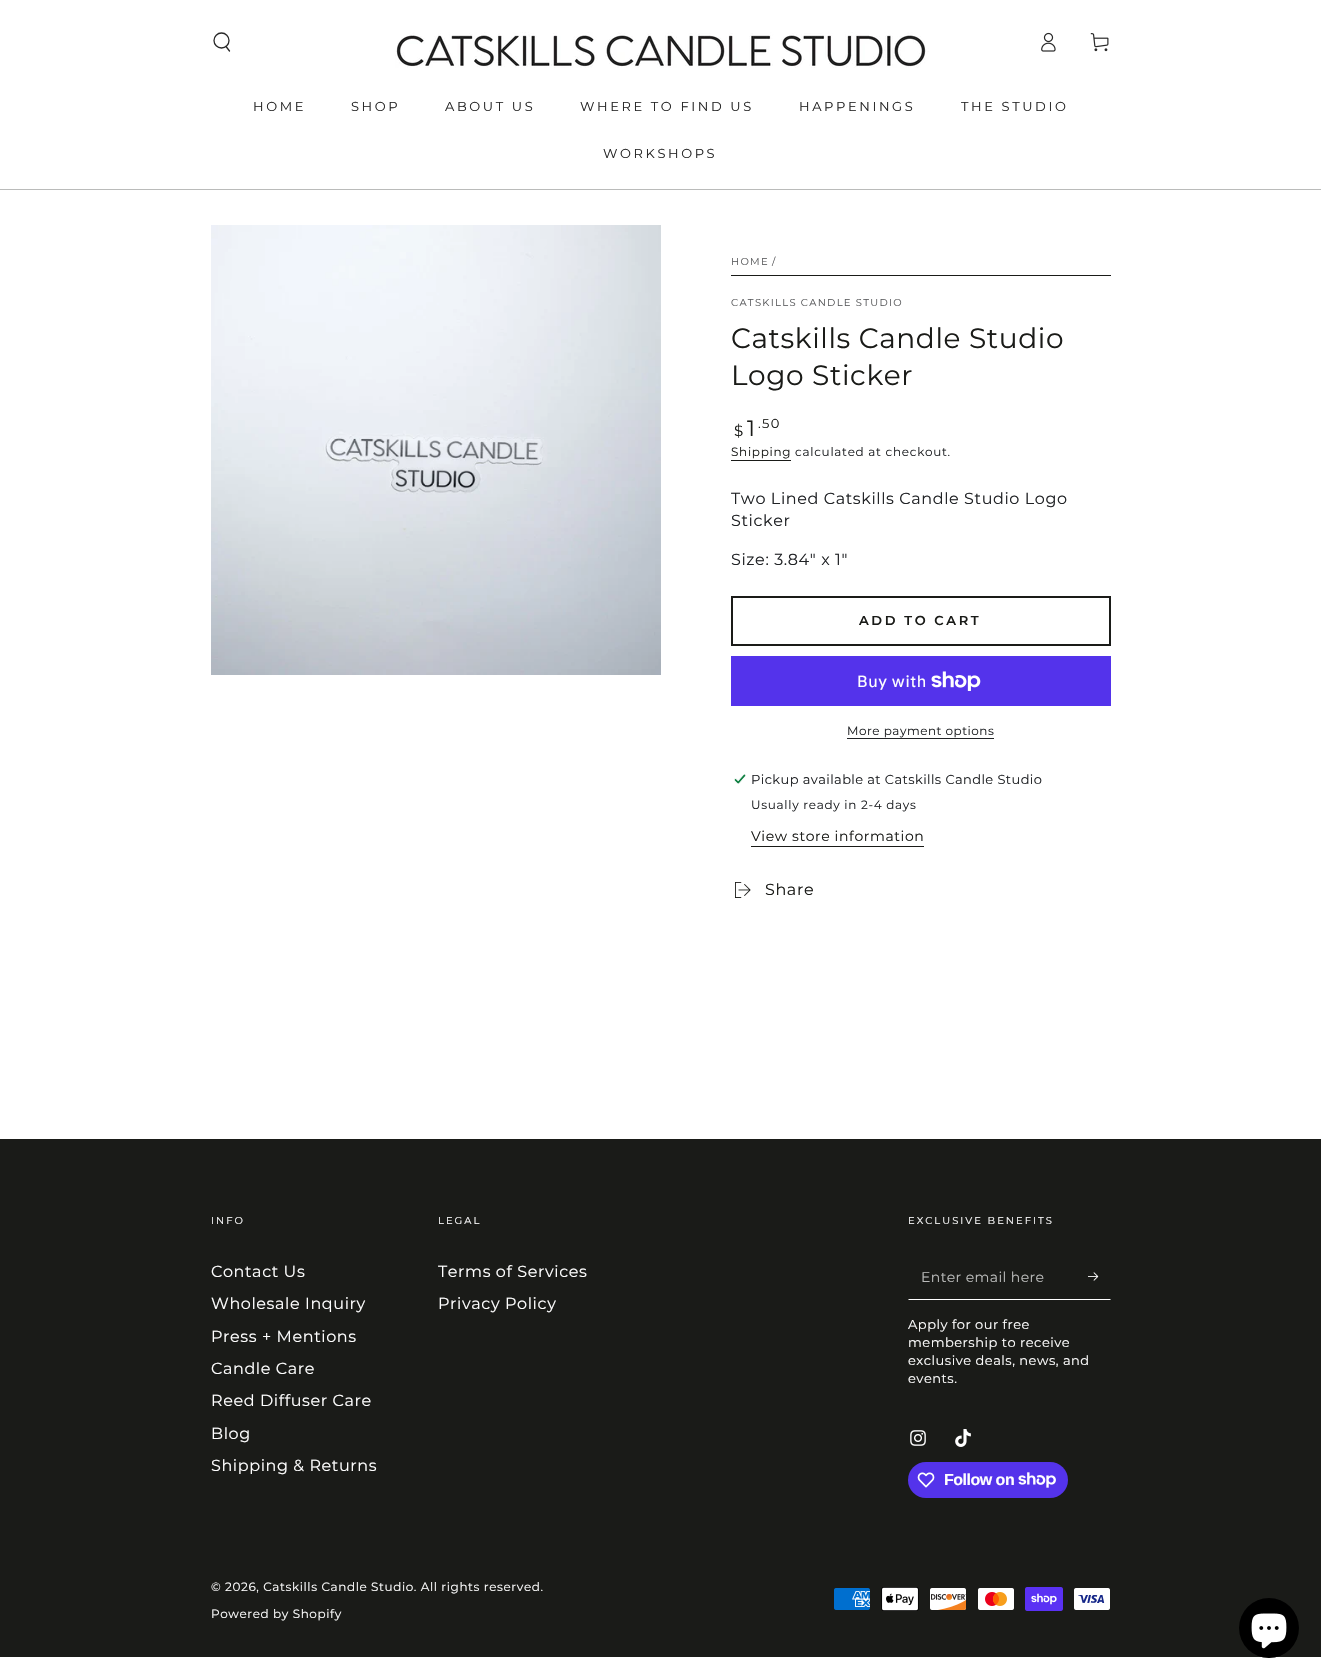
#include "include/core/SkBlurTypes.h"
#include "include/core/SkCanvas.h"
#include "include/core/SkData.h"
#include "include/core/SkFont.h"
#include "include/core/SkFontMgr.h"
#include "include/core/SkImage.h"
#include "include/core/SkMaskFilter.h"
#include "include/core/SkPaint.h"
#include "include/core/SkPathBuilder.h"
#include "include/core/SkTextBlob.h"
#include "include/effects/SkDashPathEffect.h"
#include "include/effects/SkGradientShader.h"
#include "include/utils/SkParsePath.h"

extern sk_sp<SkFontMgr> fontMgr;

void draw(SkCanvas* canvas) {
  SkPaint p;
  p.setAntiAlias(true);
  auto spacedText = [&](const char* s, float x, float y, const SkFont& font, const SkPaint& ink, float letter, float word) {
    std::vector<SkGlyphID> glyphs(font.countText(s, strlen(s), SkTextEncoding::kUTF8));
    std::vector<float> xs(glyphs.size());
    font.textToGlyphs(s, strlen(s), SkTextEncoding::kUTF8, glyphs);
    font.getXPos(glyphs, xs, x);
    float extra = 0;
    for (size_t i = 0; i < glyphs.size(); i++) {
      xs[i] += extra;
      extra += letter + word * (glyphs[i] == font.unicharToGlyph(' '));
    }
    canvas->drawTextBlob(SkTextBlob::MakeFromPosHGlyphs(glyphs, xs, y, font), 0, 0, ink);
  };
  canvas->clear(SK_ColorWHITE);
  p.setColor(SkColorSetRGB(186, 187, 186));
  canvas->drawRect(SkRect::MakeLTRB(0, 189, 1321, 190), p);
  p.setStyle(SkPaint::kStroke_Style);
  p.setStrokeWidth(1.3f);
  p.setColor(SkColorSetRGB(40, 40, 40));
  canvas->drawCircle(221.5f, 40.5f, 7.5f, p);
  p.setStrokeCap(SkPaint::kRound_Cap);
  canvas->drawPath(SkPathBuilder().moveTo(226, 46.5f).lineTo(229.5f, 51).detach(), p);
  canvas->drawImageRect(SkImages::DeferredFromEncodedData(SkData::MakeFromFileName("images/1.png")), SkRect::MakeLTRB(395, 32, 929, 68), SkSamplingOptions());
  canvas->drawImageRect(SkImages::DeferredFromEncodedData(SkData::MakeFromFileName("images/2.png")), SkRect::MakeLTRB(1041, 32, 1056, 52), SkSamplingOptions());
  canvas->drawImageRect(SkImages::DeferredFromEncodedData(SkData::MakeFromFileName("images/3.png")), SkRect::MakeLTRB(1090, 33, 1109, 52), SkSamplingOptions());
  canvas->drawImageRect(SkImages::DeferredFromEncodedData(SkData::MakeFromFileName("images/4.png")), SkRect::MakeLTRB(211, 225, 661, 675), SkSamplingOptions());
  p.setStyle(SkPaint::kFill_Style);
  p.setColor(SkColorSetRGB(26, 27, 24));
  canvas->drawRect(SkRect::MakeLTRB(731, 275, 1111, 276), p);
  canvas->drawRect(SkRect::MakeLTRB(731, 460, 791, 461), p);
  p.setStyle(SkPaint::kStroke_Style);
  p.setStrokeWidth(2);
  p.setStrokeCap(SkPaint::kButt_Cap);
  canvas->drawRect(SkRect::MakeLTRB(732, 597, 1110, 645), p);
  p.setStyle(SkPaint::kFill_Style);
  p.setColor(SkColorSetRGB(84, 51, 235));
  canvas->drawRect(SkRect::MakeLTRB(731, 656, 1111, 706), p);
  canvas->drawImageRect(SkImages::DeferredFromEncodedData(SkData::MakeFromFileName("images/5.png")), SkRect::MakeLTRB(931, 671, 981, 691), SkSamplingOptions());
  p.setColor(SkColorSetRGB(33, 35, 38));
  canvas->drawRect(SkRect::MakeLTRB(847, 738, 994, 739), p);
  canvas->drawImageRect(SkImages::DeferredFromEncodedData(SkData::MakeFromFileName("images/6.png")), SkRect::MakeLTRB(734, 774, 746, 784), SkSamplingOptions());
  p.setColor(SkColorSetRGB(26, 27, 24));
  canvas->drawRect(SkRect::MakeLTRB(751, 846, 924, 847), p);
  canvas->drawImageRect(SkImages::DeferredFromEncodedData(SkData::MakeFromFileName("images/7.png")), SkRect::MakeLTRB(735, 882, 751, 898), SkSamplingOptions());
  canvas->drawRect(SkRect::MakeLTRB(0, 1139, 1321, 1657), p);
  p.setColor(SK_ColorWHITE);
  canvas->drawPath(SkPathBuilder().moveTo(1111, 1300).lineTo(908, 1300).lineTo(909, 1299).lineTo(1110, 1299).close().detach(), p);
  canvas->drawImageRect(SkImages::DeferredFromEncodedData(SkData::MakeFromFileName("images/8.png")), SkRect::MakeLTRB(1088, 1272, 1099, 1281), SkSamplingOptions());
  canvas->drawImageRect(SkImages::DeferredFromEncodedData(SkData::MakeFromFileName("images/9.png")), SkRect::MakeLTRB(910, 1430, 926, 1446), SkSamplingOptions());
  canvas->drawImageRect(SkImages::DeferredFromEncodedData(SkData::MakeFromFileName("images/10.png")), SkRect::MakeLTRB(955, 1429, 971, 1447), SkSamplingOptions());
  p.setColor(SkColorSetRGB(84, 51, 235));
  canvas->drawRoundRect(SkRect::MakeLTRB(908, 1462, 1068, 1498), 18, 18, p);
  canvas->drawImageRect(SkImages::DeferredFromEncodedData(SkData::MakeFromFileName("images/11.png")), SkRect::MakeLTRB(917, 1472, 935, 1488), SkSamplingOptions());
  canvas->drawImageRect(SkImages::DeferredFromEncodedData(SkData::MakeFromFileName("images/12.png")), SkRect::MakeLTRB(1018, 1472, 1056, 1488), SkSamplingOptions());
  canvas->drawImageRect(SkImages::DeferredFromEncodedData(SkData::MakeFromFileName("images/13.png")), SkRect::MakeLTRB(834, 1588, 870, 1610), SkSamplingOptions());
  canvas->drawImageRect(SkImages::DeferredFromEncodedData(SkData::MakeFromFileName("images/14.png")), SkRect::MakeLTRB(881, 1587, 919, 1611), SkSamplingOptions());
  canvas->drawImageRect(SkImages::DeferredFromEncodedData(SkData::MakeFromFileName("images/15.png")), SkRect::MakeLTRB(930, 1588, 966, 1610), SkSamplingOptions());
  canvas->drawImageRect(SkImages::DeferredFromEncodedData(SkData::MakeFromFileName("images/16.png")), SkRect::MakeLTRB(978, 1588, 1014, 1610), SkSamplingOptions());
  canvas->drawImageRect(SkImages::DeferredFromEncodedData(SkData::MakeFromFileName("images/17.png")), SkRect::MakeLTRB(1025, 1587, 1063, 1611), SkSamplingOptions());
  canvas->drawImageRect(SkImages::DeferredFromEncodedData(SkData::MakeFromFileName("images/18.png")), SkRect::MakeLTRB(1074, 1588, 1110, 1610), SkSamplingOptions());
  p.setColor(SK_ColorBLACK);
  canvas->drawCircle(1269, 1628, 30, p);
  canvas->drawImageRect(SkImages::DeferredFromEncodedData(SkData::MakeFromFileName("images/19.png")), SkRect::MakeLTRB(1251, 1613, 1287, 1649), SkSamplingOptions());
  SkFont font1(fontMgr->matchFamilyStyle("Montserrat", SkFontStyle(100, SkFontStyle::kNormal_Width, SkFontStyle::kUpright_Slant)), 13);
  font1.setSubpixel(true);
  p.setColor(SkColorSetRGB(40, 40, 40));
  spacedText("HOME", 253, 111, font1, p, 2.6f, 0);
  spacedText("SHOP", 351, 111, font1, p, 2.6f, 0);
  spacedText("ABOUT US", 445, 111, font1, p, 2.6f, 0);
  spacedText("WHERE TO FIND US", 580, 111, font1, p, 2.6f, 0);
  spacedText("HAPPENINGS", 799, 111, font1, p, 2.6f, 0);
  spacedText("THE STUDIO", 961, 111, font1, p, 2.6f, 0);
  spacedText("WORKSHOPS", 603, 158, font1, p, 2.6f, 0);
  SkFont font2(fontMgr->matchFamilyStyle("Montserrat", SkFontStyle(100, SkFontStyle::kNormal_Width, SkFontStyle::kUpright_Slant)), 10);
  font2.setSubpixel(true);
  p.setColor(SkColorSetRGB(89, 90, 92));
  spacedText("HOME", 731, 265, font2, p, 1.3f, 0);
  spacedText("/", 772, 265, font2, p, 1.3f, 0);
  spacedText("CATSKILLS CANDLE STUDIO", 731, 306, font2, p, 1.3f, 0);
  SkFont font3(fontMgr->matchFamilyStyle("Montserrat", SkFontStyle(100, SkFontStyle::kNormal_Width, SkFontStyle::kUpright_Slant)), 28);
  font3.setSubpixel(true);
  p.setColor(SkColorSetRGB(26, 27, 24));
  spacedText("Catskills Candle Studio", 731, 348, font3, p, 0.6f, 0);
  spacedText("Logo Sticker", 731, 385, font3, p, 0.6f, 0);
  SkFont font4(fontMgr->matchFamilyStyle("Montserrat", SkFontStyle(100, SkFontStyle::kNormal_Width, SkFontStyle::kUpright_Slant)), 15);
  font4.setSubpixel(true);
  spacedText("$", 734, 436, font4, p, 1.3f, 0);
  SkFont font5(fontMgr->matchFamilyStyle("Montserrat", SkFontStyle(100, SkFontStyle::kNormal_Width, SkFontStyle::kUpright_Slant)), 22);
  font5.setSubpixel(true);
  spacedText("1", 747, 436, font5, p, 1.3f, 0);
  spacedText(".50", 758, 428, font1, p, 1.3f, 0);
  SkFont font6(fontMgr->matchFamilyStyle("Montserrat", SkFontStyle(100, SkFontStyle::kNormal_Width, SkFontStyle::kUpright_Slant)), 12);
  font6.setSubpixel(true);
  spacedText("Shipping", 731, 456, font6, p, 0.7f, 0);
  p.setColor(SkColorSetRGB(33, 35, 38));
  spacedText("calculated at checkout.", 795, 456, font6, p, 0.7f, 0);
  SkFont font7(fontMgr->matchFamilyStyle("Montserrat", SkFontStyle(100, SkFontStyle::kNormal_Width, SkFontStyle::kUpright_Slant)), 16);
  font7.setSubpixel(true);
  spacedText("Two Lined Catskills Candle Studio Logo", 731, 504, font7, p, 0.6f, 0);
  spacedText("Sticker", 731, 526, font7, p, 0.6f, 0);
  spacedText("Size: 3.84\" x 1\"", 731, 565, font7, p, 0.6f, 0);
  SkFont font8(fontMgr->matchFamilyStyle("Montserrat", SkFontStyle(600, SkFontStyle::kNormal_Width, SkFontStyle::kUpright_Slant)), 13);
  font8.setSubpixel(true);
  p.setColor(SkColorSetRGB(26, 27, 24));
  spacedText("ADD TO CART", 859, 625, font8, p, 2.6f, 0);
  SkFont font9(fontMgr->matchFamilyStyle("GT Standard", SkFontStyle::Normal()), 16);
  font9.setSubpixel(true);
  p.setColor(SK_ColorWHITE);
  spacedText("Buy with", 857, 687, font9, p, 0.6f, 0);
  p.setColor(SkColorSetRGB(33, 35, 38));
  spacedText("More payment options", 847, 735, font6, p, 0.5f, 0);
  spacedText("Pickup available at Catskills Candle Studio", 751, 784, font1, p, 0.4f, 0);
  spacedText("Usually ready in 2-4 days", 751, 809, font6, p, 0.7f, 0);
  SkFont font10(fontMgr->matchFamilyStyle("Montserrat", SkFontStyle(100, SkFontStyle::kNormal_Width, SkFontStyle::kUpright_Slant)), 14);
  font10.setSubpixel(true);
  p.setColor(SkColorSetRGB(26, 27, 24));
  spacedText("View store information", 751, 841, font10, p, 0.6f, 0);
  spacedText("Share", 765, 895, font7, p, 0.6f, 0);
  p.setColor(SK_ColorWHITE);
  spacedText("INFO", 211, 1224, font2, p, 2, 0);
  spacedText("Contact Us", 211, 1277, font7, p, 0.6f, 0);
  spacedText("Wholesale Inquiry", 211, 1309, font7, p, 0.6f, 0);
  spacedText("Press + Mentions", 211, 1342, font7, p, 0.6f, 0);
  spacedText("Candle Care", 211, 1374, font7, p, 0.6f, 0);
  spacedText("Reed Diffuser Care", 211, 1406, font7, p, 0.6f, 0);
  spacedText("Blog", 211, 1439, font7, p, 0.6f, 0);
  spacedText("Shipping & Returns", 211, 1471, font7, p, 0.6f, 0);
  spacedText("LEGAL", 438, 1224, font2, p, 2, 0);
  spacedText("Terms of Services", 438, 1277, font7, p, 0.6f, 0);
  spacedText("Privacy Policy", 438, 1309, font7, p, 0.6f, 0);
  spacedText("EXCLUSIVE BENEFITS", 908, 1224, font2, p, 2, 0);
  p.setColor(SkColorSetRGB(186, 187, 186));
  spacedText("Enter email here", 921, 1282, font10, p, 0.4f, 0);
  p.setColor(SK_ColorWHITE);
  spacedText("Apply for our free", 908, 1329, font1, p, 0.5f, 0);
  spacedText("membership to receive", 908, 1347, font1, p, 0.5f, 0);
  spacedText("exclusive deals, news, and", 908, 1365, font1, p, 0.5f, 0);
  spacedText("events.", 908, 1383, font1, p, 0.5f, 0);
  SkFont font11(fontMgr->matchFamilyStyle("Liberation Sans", SkFontStyle::Bold()), 16);
  font11.setSubpixel(true);
  spacedText("Follow on", 944, 1485, font11, p, -0.5f, 0);
  spacedText("© 2026, Catskills Candle Studio. All rights reserved.", 211, 1591, font6, p, 0.6f, 0);
  spacedText("Powered by Shopify", 211, 1618, font6, p, 0.6f, 0);
}
